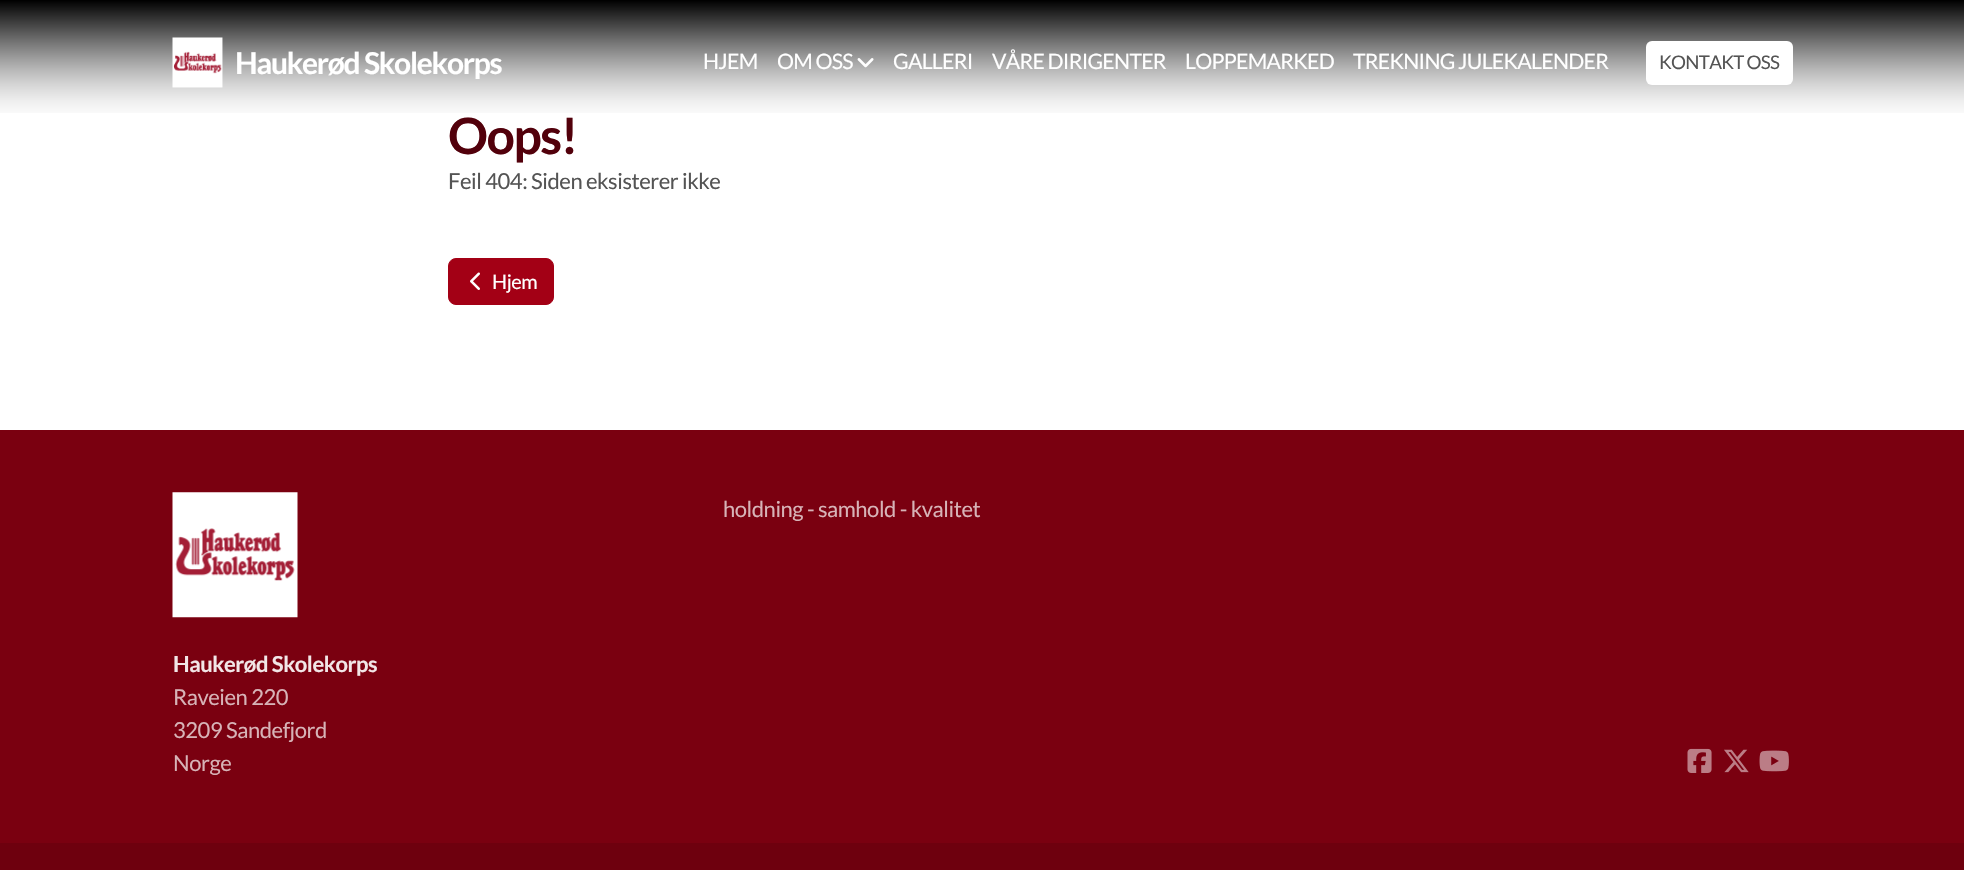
#include "include/core/SkBlurTypes.h"
#include "include/core/SkCanvas.h"
#include "include/core/SkData.h"
#include "include/core/SkFont.h"
#include "include/core/SkFontMgr.h"
#include "include/core/SkImage.h"
#include "include/core/SkMaskFilter.h"
#include "include/core/SkPaint.h"
#include "include/core/SkPathBuilder.h"
#include "include/core/SkTextBlob.h"
#include "include/effects/SkDashPathEffect.h"
#include "include/effects/SkGradientShader.h"
#include "include/utils/SkParsePath.h"

extern sk_sp<SkFontMgr> fontMgr;

void draw(SkCanvas* canvas) {
  SkPaint p;
  p.setAntiAlias(true);
  auto spacedText = [&](const char* s, float x, float y, const SkFont& font, const SkPaint& ink, float letter, float word) {
    std::vector<SkGlyphID> glyphs(font.countText(s, strlen(s), SkTextEncoding::kUTF8));
    std::vector<float> xs(glyphs.size());
    font.textToGlyphs(s, strlen(s), SkTextEncoding::kUTF8, glyphs);
    font.getXPos(glyphs, xs, x);
    float extra = 0;
    for (size_t i = 0; i < glyphs.size(); i++) {
      xs[i] += extra;
      extra += letter + word * (glyphs[i] == font.unicharToGlyph(' '));
    }
    canvas->drawTextBlob(SkTextBlob::MakeFromPosHGlyphs(glyphs, xs, y, font), 0, 0, ink);
  };
  canvas->clear(SK_ColorWHITE);
  {
    const SkColor colors[] = {SK_ColorBLACK, SkColorSetARGB(189, 0, 0, 0), SkColorSetARGB(138, 0, 0, 0), SkColorSetARGB(97, 0, 0, 0), SkColorSetARGB(71, 0, 0, 0), SkColorSetARGB(48, 0, 0, 0), SkColorSetARGB(31, 0, 0, 0), SkColorSetARGB(18, 0, 0, 0), SkColorSetARGB(10, 0, 0, 0), SkColorSetARGB(5, 0, 0, 0), SkColorSetARGB(3, 0, 0, 0), SkColorSetARGB(0, 0, 0, 0), SkColorSetARGB(0, 0, 0, 0)};
    const float stops[] = {0, 0.19f, 0.34f, 0.47f, 0.56f, 0.65f, 0.73f, 0.8f, 0.86f, 0.91f, 0.95f, 0.98f, 1};
    const SkPoint ends[] = {{983, 0}, {983, 125}};
    p.setShader(SkGradientShader::MakeLinear(ends, colors, stops, 13, SkTileMode::kClamp));
    p.setAlpha(255);
  }
  canvas->drawRect(SkRect::MakeLTRB(0, 0, 1964, 113), p);
  canvas->drawImageRect(SkImages::DeferredFromEncodedData(SkData::MakeFromFileName("images/1.png")), SkRect::MakeLTRB(172, 37, 223, 88), SkSamplingOptions());
  canvas->drawImageRect(SkImages::DeferredFromEncodedData(SkData::MakeFromFileName("images/2.png")), SkRect::MakeLTRB(857, 58, 874, 68), SkSamplingOptions());
  p.setShader(nullptr);
  p.setColor(SK_ColorWHITE);
  canvas->drawRoundRect(SkRect::MakeLTRB(1646, 41, 1793, 85), 6, 6, p);
  p.setColor(SkColorSetRGB(163, 0, 21));
  canvas->drawRoundRect(SkRect::MakeLTRB(448.5f, 258.5f, 553.5f, 304.5f), 7.5f, 7.5f, p);
  p.setStyle(SkPaint::kStroke_Style);
  p.setStrokeWidth(1);
  canvas->drawRoundRect(SkRect::MakeLTRB(448.5f, 258.5f, 553.5f, 304.5f), 7.5f, 7.5f, p);
  canvas->drawImageRect(SkImages::DeferredFromEncodedData(SkData::MakeFromFileName("images/3.png")), SkRect::MakeLTRB(470, 272, 480, 290), SkSamplingOptions());
  p.setStyle(SkPaint::kFill_Style);
  p.setColor(SkColorSetRGB(122, 0, 16));
  canvas->drawRect(SkRect::MakeLTRB(0, 430, 1964, 843), p);
  canvas->drawImageRect(SkImages::DeferredFromEncodedData(SkData::MakeFromFileName("images/4.png")), SkRect::MakeLTRB(1687, 748, 1712, 773), SkSamplingOptions());
  canvas->drawImageRect(SkImages::DeferredFromEncodedData(SkData::MakeFromFileName("images/5.png")), SkRect::MakeLTRB(1724, 749, 1749, 773), SkSamplingOptions());
  canvas->drawImageRect(SkImages::DeferredFromEncodedData(SkData::MakeFromFileName("images/6.png")), SkRect::MakeLTRB(1759, 750, 1789, 772), SkSamplingOptions());
  canvas->drawImageRect(SkImages::DeferredFromEncodedData(SkData::MakeFromFileName("images/7.png")), SkRect::MakeLTRB(172, 492, 298, 618), SkSamplingOptions());
  p.setColor(SkColorSetRGB(110, 0, 14));
  canvas->drawRect(SkRect::MakeLTRB(0, 843, 1964, 870), p);
  SkFont font1(fontMgr->matchFamilyStyle("Lato", SkFontStyle::Bold()), 30);
  font1.setSubpixel(true);
  p.setColor(SK_ColorWHITE);
  spacedText("Haukerød Skolekorps", 235, 74, font1, p, -1.25f, 0);
  SkFont font2(fontMgr->matchFamilyStyle("Lato", SkFontStyle::Normal()), 21.25f);
  font2.setSubpixel(true);
  spacedText("HJEM", 703, 69, font2, p, -0.7f, 0);
  spacedText("OM OSS", 777, 69, font2, p, -0.7f, 0);
  spacedText("GALLERI", 893, 69, font2, p, -0.7f, 0);
  spacedText("VÅRE DIRIGENTER", 992, 69, font2, p, -0.7f, 0);
  spacedText("LOPPEMARKED", 1185, 69, font2, p, -0.7f, 0);
  spacedText("TREKNING JULEKALENDER", 1353, 69, font2, p, -0.7f, 0);
  SkFont font3(fontMgr->matchFamilyStyle("Lato", SkFontStyle::Normal()), 18.75f);
  font3.setSubpixel(true);
  p.setColor(SkColorSetRGB(84, 84, 84));
  spacedText("KONTAKT OSS", 1659, 69, font3, p, -0.7f, 0);
  SkFont font4(fontMgr->matchFamilyStyle("Lato", SkFontStyle::Bold()), 50);
  font4.setSubpixel(true);
  p.setColor(SkColorSetRGB(82, 0, 11));
  spacedText("Oops!", 448, 154, font4, p, -1.5f, 0);
  SkFont font5(fontMgr->matchFamilyStyle("Lato", SkFontStyle::Normal()), 22);
  font5.setSubpixel(true);
  p.setColor(SkColorSetRGB(84, 84, 84));
  spacedText("Feil 404: Siden eksisterer ikke", 448, 189, font5, p, -0.45f, 0);
  SkFont font6(fontMgr->matchFamilyStyle("Lato", SkFontStyle::Normal()), 20);
  font6.setSubpixel(true);
  p.setColor(SK_ColorWHITE);
  spacedText("Hjem", 492, 289, font6, p, -0.45f, 0);
  p.setColor(SkColorSetRGB(215, 179, 183));
  spacedText("holdning - samhold - kvalitet", 723, 517, font5, p, -0.45f, 0);
  SkFont font7(fontMgr->matchFamilyStyle("Lato", SkFontStyle::Bold()), 22);
  font7.setSubpixel(true);
  p.setColor(SkColorSetRGB(242, 230, 231));
  spacedText("Haukerød Skolekorps", 173, 672, font7, p, -0.45f, 0);
  p.setColor(SkColorSetRGB(215, 179, 183));
  spacedText("Raveien 220", 173, 705, font5, p, -0.45f, 0);
  spacedText("3209 Sandefjord", 173, 738, font5, p, -0.45f, 0);
  spacedText("Norge", 173, 771, font5, p, -0.45f, 0);
}
